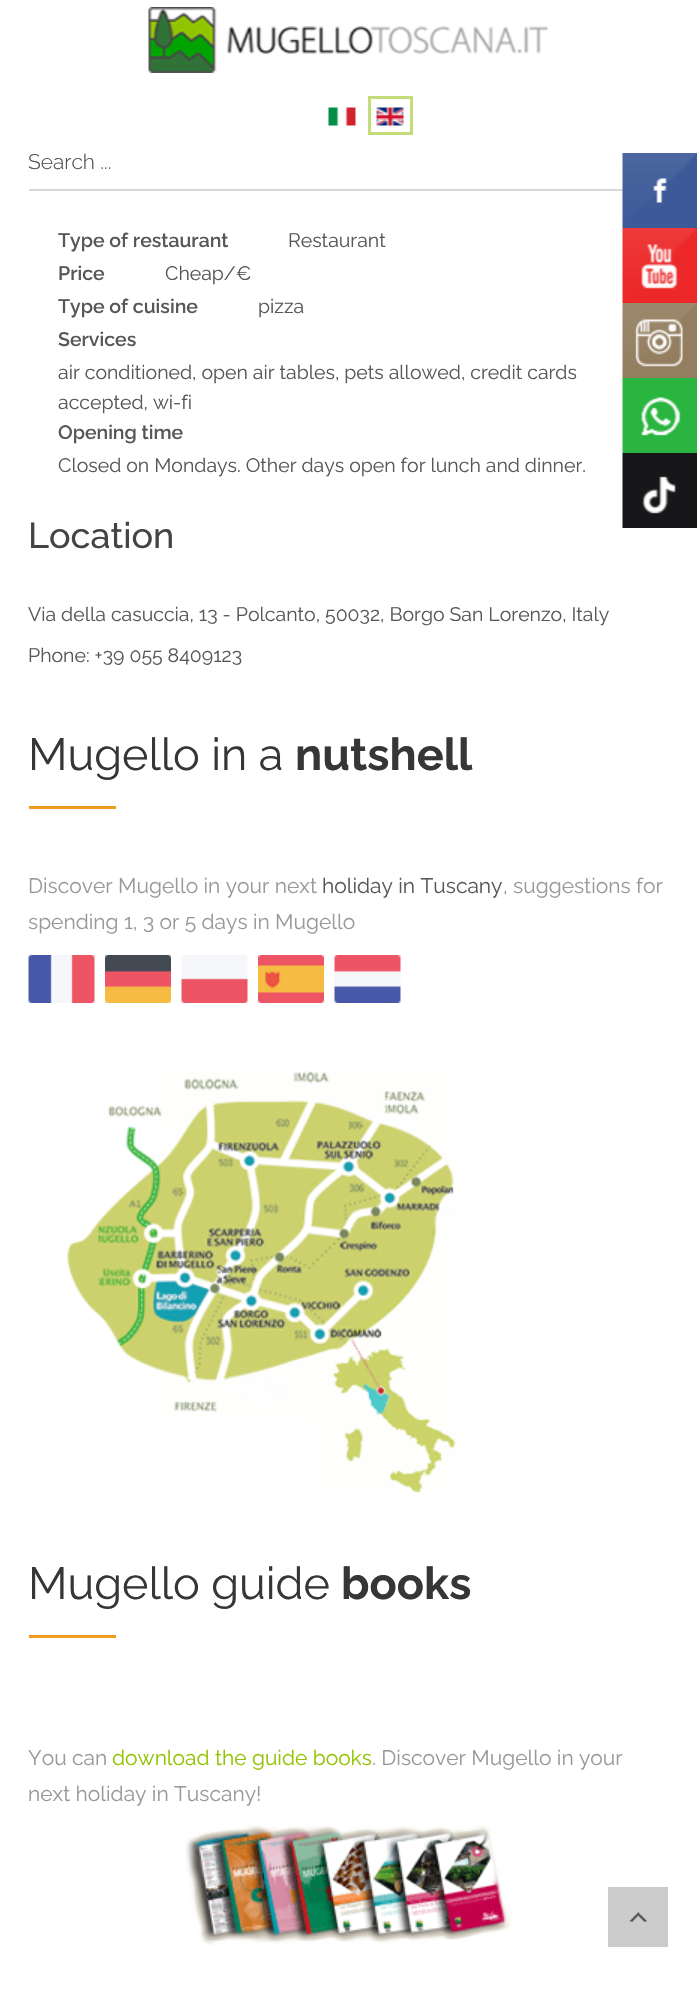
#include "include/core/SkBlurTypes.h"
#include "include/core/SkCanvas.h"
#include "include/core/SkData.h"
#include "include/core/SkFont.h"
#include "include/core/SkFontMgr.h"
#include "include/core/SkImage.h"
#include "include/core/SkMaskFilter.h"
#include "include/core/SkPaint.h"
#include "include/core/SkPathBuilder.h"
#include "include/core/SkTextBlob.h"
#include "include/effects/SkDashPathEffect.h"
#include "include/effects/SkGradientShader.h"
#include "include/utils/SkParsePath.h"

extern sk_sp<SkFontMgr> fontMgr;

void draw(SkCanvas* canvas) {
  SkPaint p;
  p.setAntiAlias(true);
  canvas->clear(SK_ColorWHITE);
  canvas->drawImageRect(SkImages::DeferredFromEncodedData(SkData::MakeFromFileName("images/1.png")), SkRect::MakeLTRB(148, 7, 548, 73), SkSamplingOptions());
  canvas->drawImageRect(SkImages::DeferredFromEncodedData(SkData::MakeFromFileName("images/2.png")), SkRect::MakeLTRB(328, 107, 356, 126), SkSamplingOptions());
  p.setStyle(SkPaint::kStroke_Style);
  p.setStrokeWidth(3);
  p.setColor(SkColorSetRGB(196, 221, 123));
  canvas->drawRect(SkRect::MakeLTRB(369.5f, 97.5f, 411.5f, 133.5f), p);
  canvas->drawImageRect(SkImages::DeferredFromEncodedData(SkData::MakeFromFileName("images/3.png")), SkRect::MakeLTRB(376, 107, 404, 126), SkSamplingOptions());
  p.setStyle(SkPaint::kFill_Style);
  p.setColor(SkColorSetRGB(215, 215, 215));
  canvas->drawRect(SkRect::MakeLTRB(29, 189, 623, 191), p);
  canvas->drawImageRect(SkImages::DeferredFromEncodedData(SkData::MakeFromFileName("images/4.png")), SkRect::MakeLTRB(622, 153, 697, 228), SkSamplingOptions());
  canvas->drawImageRect(SkImages::DeferredFromEncodedData(SkData::MakeFromFileName("images/5.png")), SkRect::MakeLTRB(622, 228, 697, 303), SkSamplingOptions());
  canvas->drawImageRect(SkImages::DeferredFromEncodedData(SkData::MakeFromFileName("images/6.png")), SkRect::MakeLTRB(622, 303, 697, 378), SkSamplingOptions());
  canvas->drawImageRect(SkImages::DeferredFromEncodedData(SkData::MakeFromFileName("images/7.png")), SkRect::MakeLTRB(622, 378, 697, 453), SkSamplingOptions());
  canvas->drawImageRect(SkImages::DeferredFromEncodedData(SkData::MakeFromFileName("images/8.png")), SkRect::MakeLTRB(622, 453, 697, 528), SkSamplingOptions());
  p.setColor(SkColorSetRGB(237, 156, 28));
  canvas->drawRect(SkRect::MakeLTRB(29, 806, 116, 809), p);
  canvas->drawImageRect(SkImages::DeferredFromEncodedData(SkData::MakeFromFileName("images/9.png")), SkRect::MakeLTRB(28, 955, 95, 1003), SkSamplingOptions());
  canvas->drawImageRect(SkImages::DeferredFromEncodedData(SkData::MakeFromFileName("images/10.png")), SkRect::MakeLTRB(105, 955, 171, 1003), SkSamplingOptions());
  canvas->drawImageRect(SkImages::DeferredFromEncodedData(SkData::MakeFromFileName("images/11.png")), SkRect::MakeLTRB(181, 955, 248, 1003), SkSamplingOptions());
  canvas->drawImageRect(SkImages::DeferredFromEncodedData(SkData::MakeFromFileName("images/12.png")), SkRect::MakeLTRB(258, 955, 324, 1003), SkSamplingOptions());
  canvas->drawImageRect(SkImages::DeferredFromEncodedData(SkData::MakeFromFileName("images/13.png")), SkRect::MakeLTRB(334, 955, 401, 1003), SkSamplingOptions());
  canvas->drawImageRect(SkImages::DeferredFromEncodedData(SkData::MakeFromFileName("images/14.png")), SkRect::MakeLTRB(67, 1071, 457, 1494), SkSamplingOptions());
  canvas->drawRect(SkRect::MakeLTRB(29, 1635, 116, 1638), p);
  canvas->drawImageRect(SkImages::DeferredFromEncodedData(SkData::MakeFromFileName("images/15.png")), SkRect::MakeLTRB(185, 1825, 512, 1946), SkSamplingOptions());
  p.setColor(SkColorSetRGB(204, 204, 204));
  canvas->drawRect(SkRect::MakeLTRB(608, 1887, 668, 1947), p);
  canvas->drawImageRect(SkImages::DeferredFromEncodedData(SkData::MakeFromFileName("images/16.png")), SkRect::MakeLTRB(629, 1912, 647, 1922), SkSamplingOptions());
  SkFont font1(fontMgr->matchFamilyStyle("Raleway", SkFontStyle(300, SkFontStyle::kNormal_Width, SkFontStyle::kUpright_Slant)), 21);
  font1.setSubpixel(true);
  p.setColor(SkColorSetRGB(75, 75, 75));
  canvas->drawString("Search ...", 28, 169, font1, p);
  SkFont font2(fontMgr->matchFamilyStyle("Raleway", SkFontStyle(600, SkFontStyle::kNormal_Width, SkFontStyle::kUpright_Slant)), 19.5f);
  font2.setSubpixel(true);
  p.setColor(SkColorSetRGB(87, 87, 87));
  canvas->drawString("Type of restaurant", 58, 247, font2, p);
  SkFont font3(fontMgr->matchFamilyStyle("Raleway", SkFontStyle::Normal()), 19.5f);
  font3.setSubpixel(true);
  canvas->drawString("Restaurant", 288, 247, font3, p);
  canvas->drawString("Price", 58, 280, font2, p);
  canvas->drawString("Cheap/€", 165, 280, font3, p);
  canvas->drawString("Type of cuisine", 58, 313, font2, p);
  canvas->drawString("pizza", 258, 313, font3, p);
  canvas->drawString("Services", 58, 346, font2, p);
  canvas->drawString("air conditioned, open air tables, pets allowed, credit cards", 58, 379, font3, p);
  canvas->drawString("accepted, wi-fi", 58, 409, font3, p);
  canvas->drawString("Opening time", 58, 439, font2, p);
  canvas->drawString("Closed on Mondays. Other days open for lunch and dinner.", 58, 472, font3, p);
  SkFont font4(fontMgr->matchFamilyStyle("Raleway", SkFontStyle(500, SkFontStyle::kNormal_Width, SkFontStyle::kUpright_Slant)), 36);
  font4.setSubpixel(true);
  p.setColor(SkColorSetRGB(68, 68, 68));
  canvas->drawString("Location", 28, 548, font4, p);
  p.setColor(SkColorSetRGB(87, 87, 87));
  canvas->drawString("Via della casuccia, 13 - Polcanto, 50032, Borgo San Lorenzo, Italy", 28, 621, font3, p);
  canvas->drawString("Phone: +39 055 8409123", 28, 662, font3, p);
  SkFont font5(fontMgr->matchFamilyStyle("Raleway", SkFontStyle::Normal()), 45);
  font5.setSubpixel(true);
  p.setColor(SkColorSetRGB(55, 53, 53));
  canvas->drawString("Mugello in a", 28, 770, font5, p);
  SkFont font6(fontMgr->matchFamilyStyle("Raleway", SkFontStyle::Bold()), 45);
  font6.setSubpixel(true);
  canvas->drawString("nutshell", 295, 770, font6, p);
  SkFont font7(fontMgr->matchFamilyStyle("Raleway", SkFontStyle::Normal()), 21);
  font7.setSubpixel(true);
  p.setColor(SkColorSetRGB(153, 153, 153));
  canvas->drawString("Discover Mugello in your next", 28, 893, font7, p);
  p.setColor(SkColorSetRGB(87, 87, 87));
  canvas->drawString("holiday in Tuscany", 322, 893, font7, p);
  p.setColor(SkColorSetRGB(153, 153, 153));
  canvas->drawString(", suggestions for", 503, 893, font7, p);
  canvas->drawString("spending 1, 3 or 5 days in Mugello", 28, 929, font7, p);
  p.setColor(SkColorSetRGB(55, 53, 53));
  canvas->drawString("Mugello guide", 28, 1599, font5, p);
  canvas->drawString("books", 341, 1599, font6, p);
  p.setColor(SkColorSetRGB(153, 153, 153));
  canvas->drawString("You can", 28, 1765, font7, p);
  p.setColor(SkColorSetRGB(145, 196, 0));
  canvas->drawString("download the guide books", 112, 1765, font7, p);
  p.setColor(SkColorSetRGB(153, 153, 153));
  canvas->drawString(". Discover Mugello in your", 372, 1765, font7, p);
  canvas->drawString("next holiday in Tuscany!", 28, 1801, font7, p);
}
